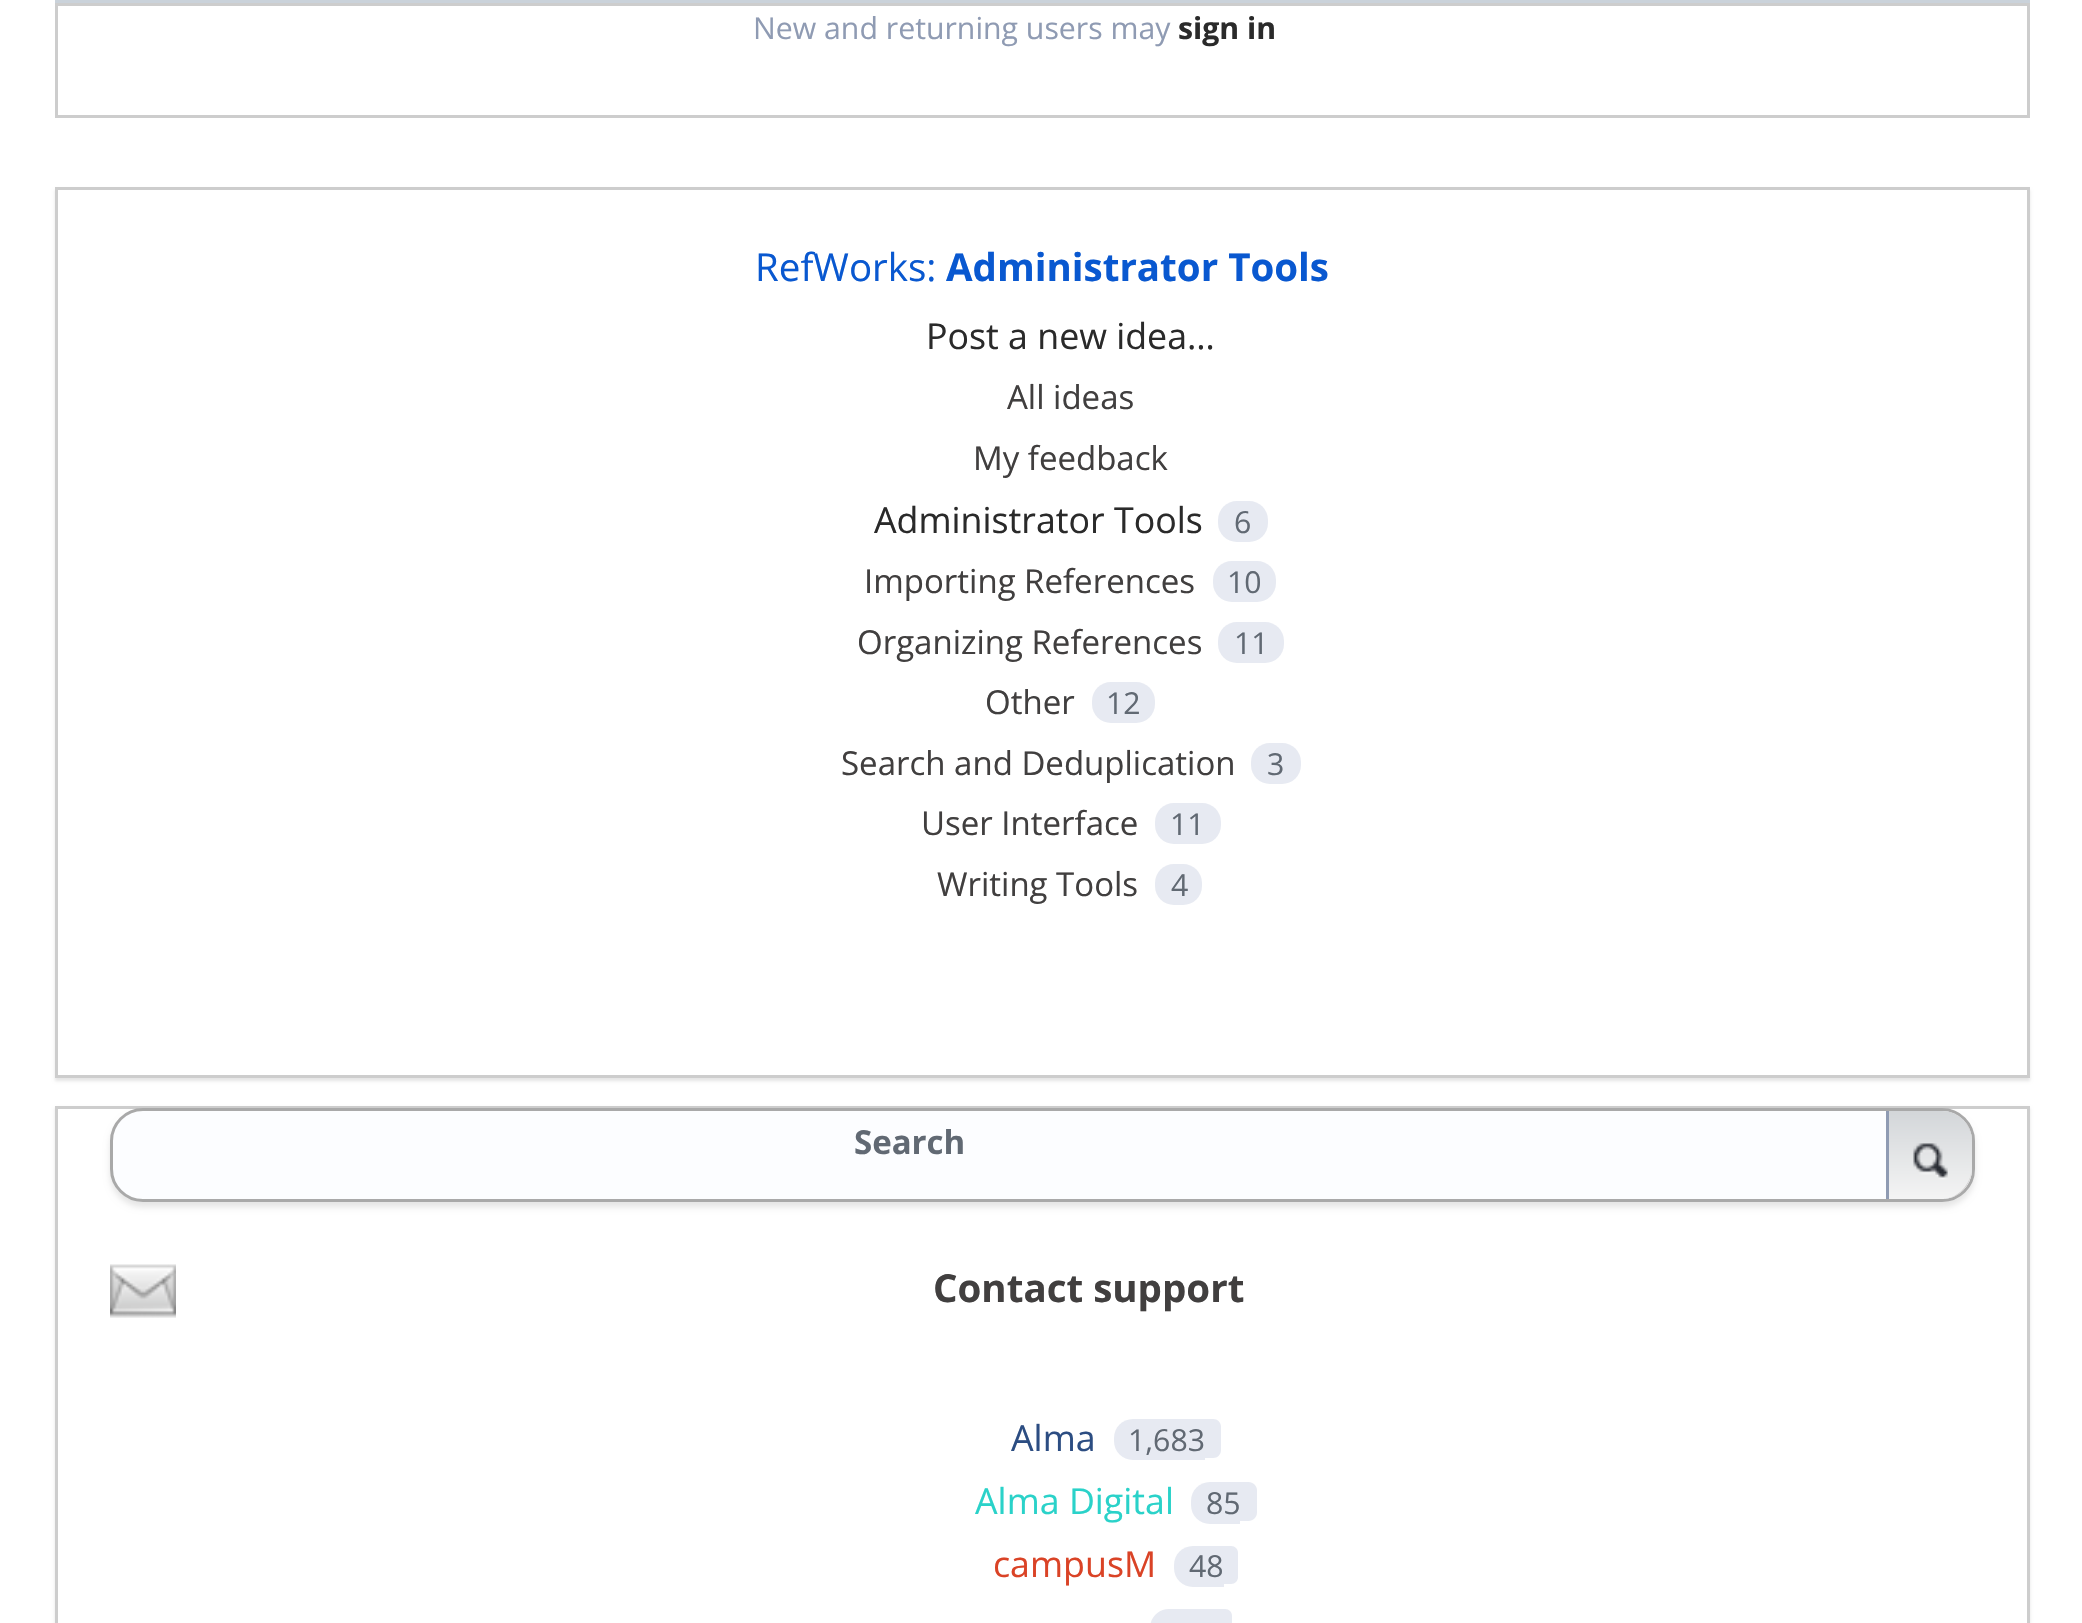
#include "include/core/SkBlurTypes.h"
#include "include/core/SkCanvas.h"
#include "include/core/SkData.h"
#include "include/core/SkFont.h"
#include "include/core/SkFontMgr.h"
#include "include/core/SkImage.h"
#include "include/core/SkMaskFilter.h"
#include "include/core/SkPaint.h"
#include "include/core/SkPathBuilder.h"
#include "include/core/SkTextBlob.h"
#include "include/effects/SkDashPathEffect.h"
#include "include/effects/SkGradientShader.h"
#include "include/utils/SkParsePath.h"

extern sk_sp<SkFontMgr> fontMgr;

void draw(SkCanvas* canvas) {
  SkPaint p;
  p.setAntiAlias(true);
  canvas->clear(SK_ColorWHITE);
  p.setColor(SkColorSetRGB(202, 210, 218));
  canvas->drawRect(SkRect::MakeLTRB(55, 0, 2030, 3), p);
  p.setStyle(SkPaint::kStroke_Style);
  p.setStrokeWidth(3);
  p.setColor(SkColorSetRGB(205, 205, 205));
  canvas->drawRect(SkRect::MakeLTRB(56.5f, 4.5f, 2028.5f, 116.5f), p);
  p.setStyle(SkPaint::kFill_Style);
  p.setColor(SkColorSetARGB(26, 0, 0, 0));
  p.setMaskFilter(SkMaskFilter::MakeBlur(kNormal_SkBlurStyle, 1.5f));
  canvas->drawRect(SkRect::MakeLTRB(55, 190, 2030, 1081), p);
  p.setMaskFilter(nullptr);
  p.setColor(SK_ColorWHITE);
  canvas->drawRect(SkRect::MakeLTRB(56.5f, 188.5f, 2028.5f, 1076.5f), p);
  p.setStyle(SkPaint::kStroke_Style);
  p.setColor(SkColorSetRGB(205, 205, 205));
  canvas->drawRect(SkRect::MakeLTRB(56.5f, 188.5f, 2028.5f, 1076.5f), p);
  p.setStyle(SkPaint::kFill_Style);
  p.setColor(SkColorSetRGB(231, 234, 242));
  canvas->drawRoundRect(SkRect::MakeLTRB(1218, 501, 1268, 542), 19, 19, p);
  canvas->drawRoundRect(SkRect::MakeLTRB(1213, 561, 1276, 602), 19, 19, p);
  canvas->drawRoundRect(SkRect::MakeLTRB(1218, 622, 1284, 663), 19, 19, p);
  canvas->drawRoundRect(SkRect::MakeLTRB(1092, 682, 1155, 723), 19, 19, p);
  canvas->drawRoundRect(SkRect::MakeLTRB(1251, 743, 1301, 784), 19, 19, p);
  canvas->drawRoundRect(SkRect::MakeLTRB(1155, 803, 1221, 844), 19, 19, p);
  canvas->drawRoundRect(SkRect::MakeLTRB(1155, 864, 1202, 905), 19, 19, p);
  p.setColor(SkColorSetARGB(26, 0, 0, 0));
  p.setMaskFilter(SkMaskFilter::MakeBlur(kNormal_SkBlurStyle, 1.5f));
  canvas->drawRect(SkRect::MakeLTRB(55, 1108, 2030, 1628), p);
  p.setMaskFilter(nullptr);
  p.setColor(SK_ColorWHITE);
  canvas->drawRect(SkRect::MakeLTRB(56.5f, 1107.5f, 2028.5f, 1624.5f), p);
  p.setStyle(SkPaint::kStroke_Style);
  p.setColor(SkColorSetRGB(205, 205, 205));
  canvas->drawRect(SkRect::MakeLTRB(56.5f, 1107.5f, 2028.5f, 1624.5f), p);
  p.setStyle(SkPaint::kFill_Style);
  p.setColor(SkColorSetARGB(26, 0, 0, 0));
  p.setMaskFilter(SkMaskFilter::MakeBlur(kNormal_SkBlurStyle, 3));
  canvas->drawRoundRect(SkRect::MakeLTRB(110, 1114, 1975, 1207), 33, 33, p);
  p.setMaskFilter(nullptr);
  p.setColor(SkColorSetRGB(252, 253, 255));
  canvas->drawRoundRect(SkRect::MakeLTRB(111.5f, 1109.5f, 1973.5f, 1200.5f), 31.5f, 31.5f, p);
  p.setStyle(SkPaint::kStroke_Style);
  p.setColor(SkColorSetRGB(169, 169, 169));
  canvas->drawRoundRect(SkRect::MakeLTRB(111.5f, 1109.5f, 1973.5f, 1200.5f), 31.5f, 31.5f, p);
  canvas->save();
  canvas->clipPath(SkPathBuilder().moveTo(1887, 1108).lineTo(1942, 1108).cubicTo(1960, 1108, 1975, 1123, 1975, 1141).lineTo(1975, 1166).cubicTo(1975, 1184, 1960, 1199, 1942, 1199).lineTo(1887, 1199).close().detach(), true);
  p.setStyle(SkPaint::kFill_Style);
  {
    const SkColor colors[] = {SkColorSetRGB(211, 214, 217), SkColorSetRGB(244, 244, 244)};
    const float stops[] = {0, 1};
    const SkPoint ends[] = {{1889, 1111}, {1889, 1199}};
    p.setShader(SkGradientShader::MakeLinear(ends, colors, stops, 2, SkTileMode::kClamp));
    p.setAlpha(255);
  }
  canvas->drawPath(SkPathBuilder().moveTo(1887, 1111).lineTo(1942, 1111).cubicTo(1958.5f, 1111, 1972, 1124.5f, 1972, 1141).lineTo(1972, 1169).cubicTo(1972, 1185.5f, 1958.5f, 1199, 1942, 1199).lineTo(1887, 1199).close().detach(), p);
  canvas->restore();
  p.setShader(nullptr);
  p.setColor(SkColorSetRGB(206, 204, 204));
  canvas->drawPath(SkPathBuilder().moveTo(1942, 1111).cubicTo(1950, 1111, 1957.5f, 1114.5f, 1963, 1119.5f).lineTo(1963, 1120).cubicTo(1957.5f, 1114.5f, 1950, 1111, 1942, 1111).close().detach(), p);
  canvas->drawPath(SkPathBuilder(SkPathFillType::kEvenOdd).moveTo(1972, 1166).cubicTo(1972, 1184, 1961, 1199, 1942, 1199).cubicTo(1958, 1199, 1972, 1184, 1972, 1166).close().moveTo(1963, 1120).cubicTo(1968, 1125, 1972, 1133, 1972, 1141).cubicTo(1972, 1133, 1969, 1125, 1963, 1120).close().detach(), p);
  p.setColor(SkColorSetRGB(143, 155, 179));
  canvas->drawRect(SkRect::MakeLTRB(1886, 1111, 1889, 1199), p);
  canvas->drawImageRect(SkImages::DeferredFromEncodedData(SkData::MakeFromFileName("images/1.png")), SkRect::MakeLTRB(1913, 1143, 1948, 1180), SkSamplingOptions());
  canvas->drawImageRect(SkImages::DeferredFromEncodedData(SkData::MakeFromFileName("images/2.png")), SkRect::MakeLTRB(110, 1264, 176, 1318), SkSamplingOptions());
  p.setColor(SkColorSetRGB(231, 234, 242));
  canvas->drawPath(SkPathBuilder().moveTo(1133, 1419).lineTo(1205, 1419).lineTo(1205, 1460).lineTo(1133, 1460).cubicTo(1122.5f, 1460, 1114, 1451.5f, 1114, 1441).lineTo(1114, 1438).cubicTo(1114, 1427.5f, 1122.5f, 1419, 1133, 1419).close().detach(), p);
  canvas->drawPath(SkPathBuilder().moveTo(1205, 1419).lineTo(1213, 1419).cubicTo(1217.5f, 1419, 1221, 1422.5f, 1221, 1427).lineTo(1221, 1450).cubicTo(1221, 1454.5f, 1217.5f, 1458, 1213, 1458).lineTo(1205, 1458).close().detach(), p);
  canvas->drawPath(SkPathBuilder().moveTo(1210, 1482).lineTo(1240, 1482).lineTo(1240, 1524).lineTo(1210, 1524).cubicTo(1199.5f, 1524, 1191, 1515.5f, 1191, 1505).lineTo(1191, 1501).cubicTo(1191, 1490.5f, 1199.5f, 1482, 1210, 1482).close().detach(), p);
  canvas->drawPath(SkPathBuilder().moveTo(1240, 1482).lineTo(1248.5f, 1482).cubicTo(1253, 1482, 1257, 1486, 1257, 1490.5f).lineTo(1257, 1512.5f).cubicTo(1257, 1517, 1253, 1521, 1248.5f, 1521).lineTo(1240, 1521).close().detach(), p);
  canvas->drawPath(SkPathBuilder().moveTo(1193, 1546).lineTo(1224, 1546).lineTo(1224, 1587).lineTo(1193, 1587).cubicTo(1182.5f, 1587, 1174, 1578.5f, 1174, 1568).lineTo(1174, 1565).cubicTo(1174, 1554.5f, 1182.5f, 1546, 1193, 1546).close().detach(), p);
  canvas->drawPath(SkPathBuilder().moveTo(1224, 1546).lineTo(1231, 1546).cubicTo(1235, 1546, 1238, 1549, 1238, 1553).lineTo(1238, 1577).cubicTo(1238, 1581, 1235, 1584, 1231, 1584).lineTo(1224, 1584).close().detach(), p);
  canvas->drawPath(SkPathBuilder().moveTo(1169, 1609).lineTo(1218, 1609).lineTo(1218, 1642).lineTo(1169, 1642).cubicTo(1158.5f, 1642, 1150, 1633.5f, 1150, 1623).lineTo(1150, 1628).cubicTo(1150, 1617.5f, 1158.5f, 1609, 1169, 1609).close().detach(), p);
  canvas->drawPath(SkPathBuilder().moveTo(1218, 1609).lineTo(1225, 1609).cubicTo(1229, 1609, 1232, 1612, 1232, 1616).lineTo(1232, 1623).cubicTo(1232, 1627, 1229, 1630, 1225, 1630).lineTo(1218, 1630).close().detach(), p);
  SkFont font1(fontMgr->matchFamilyStyle("Open Sans", SkFontStyle::Normal()), 30.25f);
  font1.setSubpixel(true);
  p.setColor(SkColorSetRGB(143, 155, 179));
  canvas->drawString("New and returning users may", 753, 39, font1, p);
  SkFont font2(fontMgr->matchFamilyStyle("Open Sans", SkFontStyle::Bold()), 30.25f);
  font2.setSubpixel(true);
  p.setColor(SkColorSetRGB(42, 42, 42));
  canvas->drawString("sign in", 1178, 39, font2, p);
  SkFont font3(fontMgr->matchFamilyStyle("Open Sans", SkFontStyle::Normal()), 38.5f);
  font3.setSubpixel(true);
  p.setColor(SkColorSetRGB(9, 88, 208));
  canvas->drawString("RefWorks:", 755, 281, font3, p);
  SkFont font4(fontMgr->matchFamilyStyle("Open Sans", SkFontStyle::Bold()), 38.5f);
  font4.setSubpixel(true);
  canvas->drawString("Administrator Tools", 946, 281, font4, p);
  SkFont font5(fontMgr->matchFamilyStyle("Open Sans", SkFontStyle::Normal()), 35.75f);
  font5.setSubpixel(true);
  p.setColor(SkColorSetRGB(42, 42, 42));
  canvas->drawString("Post a new idea…", 926, 349, font5, p);
  SkFont font6(fontMgr->matchFamilyStyle("Open Sans", SkFontStyle::Normal()), 33);
  font6.setSubpixel(true);
  p.setColor(SkColorSetRGB(65, 63, 63));
  canvas->drawString("All ideas", 1007, 409, font6, p);
  canvas->drawString("My feedback", 973, 470, font6, p);
  p.setColor(SkColorSetRGB(42, 42, 42));
  canvas->drawString("Administrator Tools", 874, 533, font5, p);
  p.setColor(SkColorSetRGB(97, 105, 115));
  canvas->drawString("6", 1234, 533, font1, p);
  p.setColor(SkColorSetRGB(65, 63, 63));
  canvas->drawString("Importing References", 864, 593, font6, p);
  p.setColor(SkColorSetRGB(97, 105, 115));
  canvas->drawString("10", 1227, 593, font1, p);
  p.setColor(SkColorSetRGB(65, 63, 63));
  canvas->drawString("Organizing References", 857, 654, font6, p);
  p.setColor(SkColorSetRGB(97, 105, 115));
  canvas->drawString("11", 1234, 654, font1, p);
  p.setColor(SkColorSetRGB(65, 63, 63));
  canvas->drawString("Other", 985, 714, font6, p);
  p.setColor(SkColorSetRGB(97, 105, 115));
  canvas->drawString("12", 1106, 714, font1, p);
  p.setColor(SkColorSetRGB(65, 63, 63));
  canvas->drawString("Search and Deduplication", 841, 775, font6, p);
  p.setColor(SkColorSetRGB(97, 105, 115));
  canvas->drawString("3", 1267, 775, font1, p);
  p.setColor(SkColorSetRGB(65, 63, 63));
  canvas->drawString("User Interface", 921, 835, font6, p);
  p.setColor(SkColorSetRGB(97, 105, 115));
  canvas->drawString("11", 1170, 835, font1, p);
  p.setColor(SkColorSetRGB(65, 63, 63));
  canvas->drawString("Writing Tools", 937, 896, font6, p);
  p.setColor(SkColorSetRGB(97, 105, 115));
  canvas->drawString("4", 1171, 896, font1, p);
  SkFont font7(fontMgr->matchFamilyStyle("Open Sans", SkFontStyle::Bold()), 33);
  font7.setSubpixel(true);
  canvas->drawString("Search", 854, 1154, font7, p);
  p.setColor(SkColorSetRGB(65, 63, 63));
  canvas->drawString("Contact support", 933, 1302, font4, p);
  p.setColor(SkColorSetRGB(44, 77, 130));
  canvas->drawString("Alma", 1011, 1451, font5, p);
  p.setColor(SkColorSetRGB(97, 105, 115));
  canvas->drawString("1,683", 1128, 1451, font1, p);
  p.setColor(SkColorSetRGB(42, 210, 201));
  canvas->drawString("Alma Digital", 975, 1514, font5, p);
  p.setColor(SkColorSetRGB(97, 105, 115));
  canvas->drawString("85", 1206, 1514, font1, p);
  p.setColor(SkColorSetRGB(218, 67, 38));
  canvas->drawString("campusM", 993, 1577, font5, p);
  p.setColor(SkColorSetRGB(97, 105, 115));
  canvas->drawString("48", 1189, 1577, font1, p);
}
